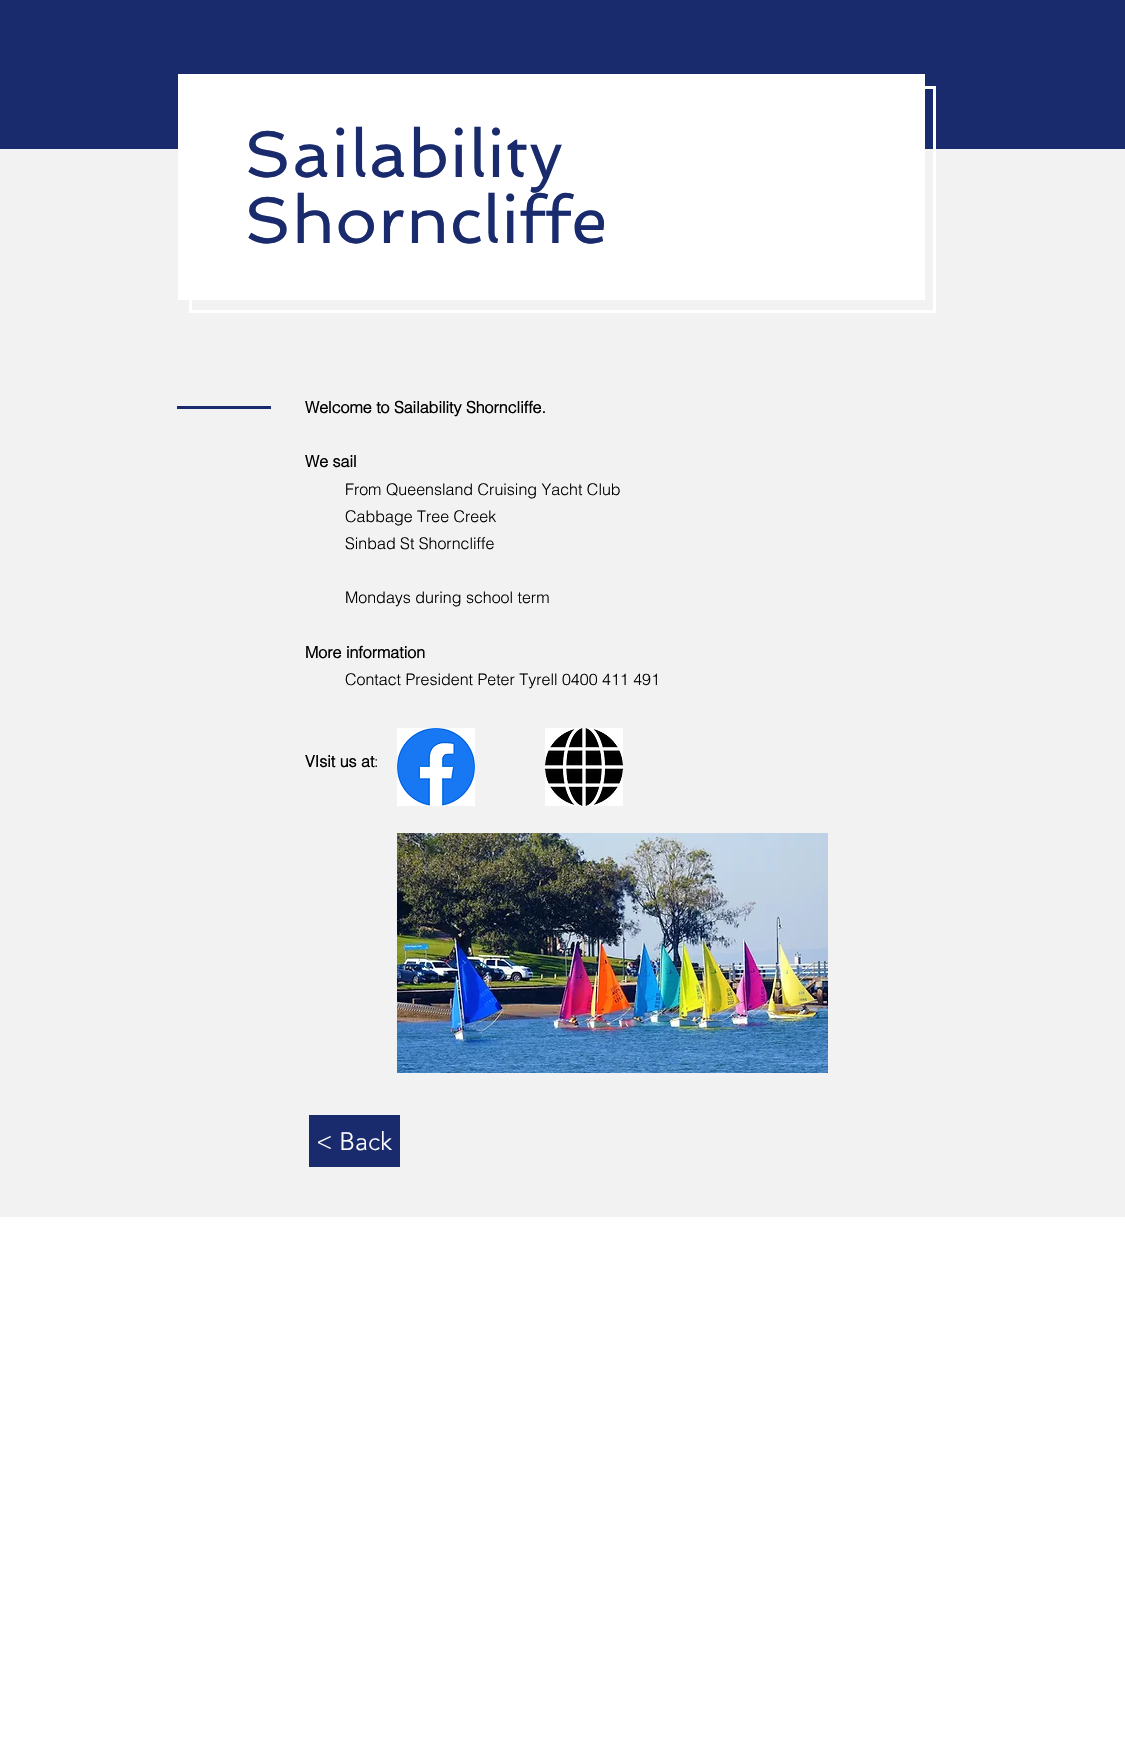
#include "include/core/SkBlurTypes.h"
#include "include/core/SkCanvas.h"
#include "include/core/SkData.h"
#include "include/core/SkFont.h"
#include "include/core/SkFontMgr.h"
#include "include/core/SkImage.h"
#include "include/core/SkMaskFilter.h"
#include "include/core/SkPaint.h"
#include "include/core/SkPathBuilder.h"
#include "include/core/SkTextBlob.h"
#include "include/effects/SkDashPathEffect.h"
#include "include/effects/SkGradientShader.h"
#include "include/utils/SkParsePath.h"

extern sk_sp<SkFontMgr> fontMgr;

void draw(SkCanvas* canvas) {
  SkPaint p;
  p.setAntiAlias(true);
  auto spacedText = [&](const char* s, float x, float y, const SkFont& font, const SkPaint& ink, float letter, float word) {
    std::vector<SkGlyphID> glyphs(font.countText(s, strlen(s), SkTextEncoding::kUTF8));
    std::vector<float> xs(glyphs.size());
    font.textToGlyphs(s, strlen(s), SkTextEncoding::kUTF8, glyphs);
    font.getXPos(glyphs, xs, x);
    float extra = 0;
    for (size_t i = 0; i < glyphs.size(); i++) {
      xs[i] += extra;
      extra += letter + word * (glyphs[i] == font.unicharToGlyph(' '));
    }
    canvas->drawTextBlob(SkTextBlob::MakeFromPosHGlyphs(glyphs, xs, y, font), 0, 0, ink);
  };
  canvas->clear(SK_ColorWHITE);
  p.setColor(SkColorSetRGB(26, 43, 109));
  canvas->drawRect(SkRect::MakeLTRB(0, 0, 1125, 149), p);
  p.setColor(SkColorSetRGB(242, 242, 242));
  canvas->drawRect(SkRect::MakeLTRB(0, 149, 1125, 1217), p);
  p.setStyle(SkPaint::kStroke_Style);
  p.setStrokeWidth(3);
  p.setColor(SK_ColorWHITE);
  canvas->drawRect(SkRect::MakeLTRB(190.5f, 87.5f, 934.5f, 311.5f), p);
  p.setStyle(SkPaint::kFill_Style);
  canvas->drawRect(SkRect::MakeLTRB(178, 74, 925, 300), p);
  p.setColor(SkColorSetRGB(26, 43, 109));
  canvas->drawRect(SkRect::MakeLTRB(177, 406, 271, 409), p);
  canvas->drawImageRect(SkImages::DeferredFromEncodedData(SkData::MakeFromFileName("images/1.png")), SkRect::MakeLTRB(397, 728, 475, 806), SkSamplingOptions());
  canvas->drawImageRect(SkImages::DeferredFromEncodedData(SkData::MakeFromFileName("images/2.png")), SkRect::MakeLTRB(545, 728, 623, 806), SkSamplingOptions());
  canvas->drawImageRect(SkImages::DeferredFromEncodedData(SkData::MakeFromFileName("images/3.png")), SkRect::MakeLTRB(397, 833, 828, 1073), SkSamplingOptions());
  canvas->drawRect(SkRect::MakeLTRB(309, 1115, 400, 1167), p);
  SkFont font1(fontMgr->matchFamilyStyle("Spinnaker", SkFontStyle::Normal()), 66);
  font1.setSubpixel(true);
  spacedText("Sailability", 244, 177, font1, p, 0.75f, 0);
  spacedText("Shorncliffe", 244, 243, font1, p, 0.75f, 0);
  SkFont font2(fontMgr->matchFamilyStyle("helvetica", SkFontStyle::Bold()), 16);
  font2.setSubpixel(true);
  p.setColor(SK_ColorBLACK);
  canvas->drawString("Welcome to Sailability Shorncliffe.", 305, 413, font2, p);
  canvas->drawString("We sail", 305, 467, font2, p);
  SkFont font3(fontMgr->matchFamilyStyle("helvetica", SkFontStyle(300, SkFontStyle::kNormal_Width, SkFontStyle::kUpright_Slant)), 16);
  font3.setSubpixel(true);
  canvas->drawString("From Queensland Cruising Yacht Club", 345, 495, font3, p);
  canvas->drawString("Cabbage Tree Creek", 345, 522, font3, p);
  canvas->drawString("Sinbad St Shorncliffe", 345, 549, font3, p);
  canvas->drawString("Mondays during school term", 345, 603, font3, p);
  canvas->drawString("More information", 305, 658, font2, p);
  canvas->drawString("Contact President Peter Tyrell 0400 411 491", 345, 685, font3, p);
  canvas->drawString("VIsit us at", 305, 767, font2, p);
  canvas->drawString(":", 374, 767, font3, p);
  SkFont font4(fontMgr->matchFamilyStyle("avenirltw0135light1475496", SkFontStyle(300, SkFontStyle::kNormal_Width, SkFontStyle::kUpright_Slant)), 25);
  font4.setSubpixel(true);
  p.setColor(SK_ColorWHITE);
  canvas->drawString("< Back", 316, 1150, font4, p);
}
